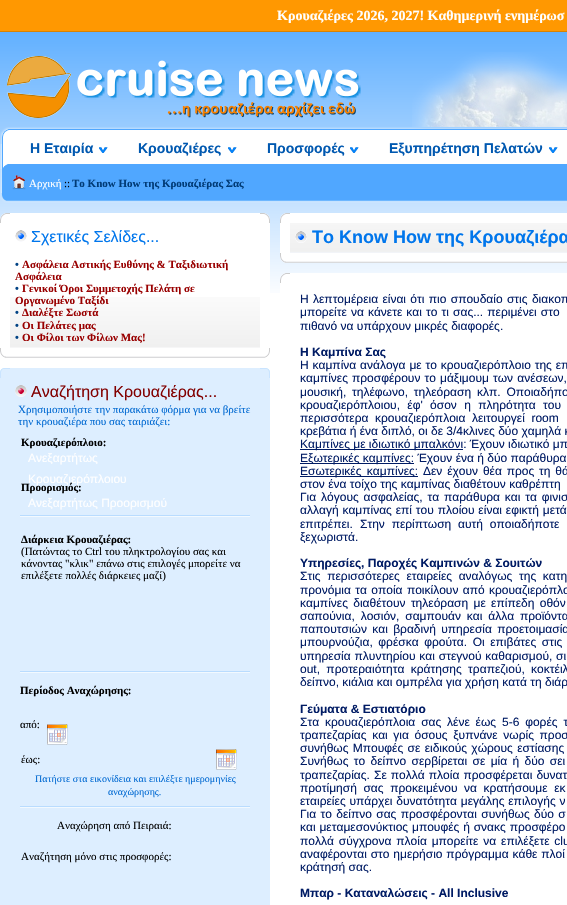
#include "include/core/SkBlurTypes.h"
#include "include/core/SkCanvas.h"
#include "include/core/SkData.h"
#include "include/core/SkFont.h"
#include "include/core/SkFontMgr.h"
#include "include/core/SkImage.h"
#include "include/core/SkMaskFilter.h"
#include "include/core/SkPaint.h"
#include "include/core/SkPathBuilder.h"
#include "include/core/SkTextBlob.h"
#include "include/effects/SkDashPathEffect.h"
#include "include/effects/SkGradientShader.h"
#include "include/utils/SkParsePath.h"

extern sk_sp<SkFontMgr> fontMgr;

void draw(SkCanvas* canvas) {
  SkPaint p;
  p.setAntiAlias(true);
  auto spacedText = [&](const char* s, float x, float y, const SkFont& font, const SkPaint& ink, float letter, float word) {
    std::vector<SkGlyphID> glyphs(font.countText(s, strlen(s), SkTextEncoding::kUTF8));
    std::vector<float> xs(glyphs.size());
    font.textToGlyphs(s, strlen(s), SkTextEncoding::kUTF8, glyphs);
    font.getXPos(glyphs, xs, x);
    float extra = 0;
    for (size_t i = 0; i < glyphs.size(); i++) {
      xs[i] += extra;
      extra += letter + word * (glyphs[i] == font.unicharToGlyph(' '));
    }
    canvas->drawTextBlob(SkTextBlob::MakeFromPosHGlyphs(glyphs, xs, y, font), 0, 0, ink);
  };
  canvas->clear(SK_ColorWHITE);
  canvas->drawImageRect(SkImages::DeferredFromEncodedData(SkData::MakeFromFileName("images/1.png")), SkRect::MakeLTRB(0, 32, 567, 293), SkSamplingOptions());
  p.setColor(SkColorSetRGB(255, 152, 1));
  canvas->drawRect(SkRect::MakeLTRB(0, 0, 567, 31), p);
  p.setColor(SkColorSetRGB(216, 130, 1));
  canvas->drawRect(SkRect::MakeLTRB(0, 31, 567, 32), p);
  canvas->drawImageRect(SkImages::DeferredFromEncodedData(SkData::MakeFromFileName("images/2.png")), SkRect::MakeLTRB(7, 56, 361, 118), SkSamplingOptions());
  canvas->drawImageRect(SkImages::DeferredFromEncodedData(SkData::MakeFromFileName("images/3.png")), SkRect::MakeLTRB(412, 52, 567, 127), SkSamplingOptions());
  canvas->drawImageRect(SkImages::DeferredFromEncodedData(SkData::MakeFromFileName("images/4.png")), SkRect::MakeLTRB(0, 127, 20, 173), SkSamplingOptions());
  canvas->drawImageRect(SkImages::DeferredFromEncodedData(SkData::MakeFromFileName("images/5.png")), SkRect::MakeLTRB(20, 127, 567, 173), SkSamplingOptions());
  canvas->drawImageRect(SkImages::DeferredFromEncodedData(SkData::MakeFromFileName("images/6.png")), SkRect::MakeLTRB(99, 147, 108, 153), SkSamplingOptions());
  canvas->drawImageRect(SkImages::DeferredFromEncodedData(SkData::MakeFromFileName("images/6.png")), SkRect::MakeLTRB(228, 147, 237, 153), SkSamplingOptions());
  canvas->drawImageRect(SkImages::DeferredFromEncodedData(SkData::MakeFromFileName("images/6.png")), SkRect::MakeLTRB(350, 147, 359, 153), SkSamplingOptions());
  canvas->drawImageRect(SkImages::DeferredFromEncodedData(SkData::MakeFromFileName("images/6.png")), SkRect::MakeLTRB(549, 147, 558, 153), SkSamplingOptions());
  canvas->drawImageRect(SkImages::DeferredFromEncodedData(SkData::MakeFromFileName("images/7.png")), SkRect::MakeLTRB(0, 173, 10, 193), SkSamplingOptions());
  p.setColor(SkColorSetRGB(80, 167, 255));
  canvas->drawRect(SkRect::MakeLTRB(10, 173, 567, 193), p);
  canvas->drawImageRect(SkImages::DeferredFromEncodedData(SkData::MakeFromFileName("images/8.png")), SkRect::MakeLTRB(12, 175, 26, 190), SkSamplingOptions());
  canvas->drawImageRect(SkImages::DeferredFromEncodedData(SkData::MakeFromFileName("images/9.png")), SkRect::MakeLTRB(0, 193, 10, 203), SkSamplingOptions());
  canvas->drawImageRect(SkImages::DeferredFromEncodedData(SkData::MakeFromFileName("images/10.png")), SkRect::MakeLTRB(10, 193, 567, 203), SkSamplingOptions());
  canvas->drawImageRect(SkImages::DeferredFromEncodedData(SkData::MakeFromFileName("images/11.png")), SkRect::MakeLTRB(0, 213, 10, 223), SkSamplingOptions());
  p.setColor(SK_ColorWHITE);
  canvas->drawRect(SkRect::MakeLTRB(10, 213, 260, 223), p);
  canvas->drawImageRect(SkImages::DeferredFromEncodedData(SkData::MakeFromFileName("images/12.png")), SkRect::MakeLTRB(260, 213, 270, 223), SkSamplingOptions());
  canvas->drawRect(SkRect::MakeLTRB(0, 223, 270, 293), p);
  canvas->drawImageRect(SkImages::DeferredFromEncodedData(SkData::MakeFromFileName("images/13.png")), SkRect::MakeLTRB(10, 297, 260, 348), SkSamplingOptions());
  canvas->drawImageRect(SkImages::DeferredFromEncodedData(SkData::MakeFromFileName("images/14.png")), SkRect::MakeLTRB(15, 230, 27, 242), SkSamplingOptions());
  canvas->drawImageRect(SkImages::DeferredFromEncodedData(SkData::MakeFromFileName("images/15.png")), SkRect::MakeLTRB(0, 348, 10, 358), SkSamplingOptions());
  canvas->drawImageRect(SkImages::DeferredFromEncodedData(SkData::MakeFromFileName("images/16.png")), SkRect::MakeLTRB(10, 356, 260, 358), SkSamplingOptions());
  canvas->drawImageRect(SkImages::DeferredFromEncodedData(SkData::MakeFromFileName("images/17.png")), SkRect::MakeLTRB(260, 348, 270, 358), SkSamplingOptions());
  canvas->drawImageRect(SkImages::DeferredFromEncodedData(SkData::MakeFromFileName("images/18.png")), SkRect::MakeLTRB(0, 368, 10, 378), SkSamplingOptions());
  p.setColor(SkColorSetRGB(221, 238, 255));
  canvas->drawRect(SkRect::MakeLTRB(10, 368, 260, 378), p);
  canvas->drawImageRect(SkImages::DeferredFromEncodedData(SkData::MakeFromFileName("images/19.png")), SkRect::MakeLTRB(260, 368, 270, 378), SkSamplingOptions());
  canvas->drawRect(SkRect::MakeLTRB(0, 378, 270, 905), p);
  canvas->drawImageRect(SkImages::DeferredFromEncodedData(SkData::MakeFromFileName("images/20.png")), SkRect::MakeLTRB(15, 385, 27, 397), SkSamplingOptions());
  canvas->drawImageRect(SkImages::DeferredFromEncodedData(SkData::MakeFromFileName("images/21.png")), SkRect::MakeLTRB(20, 515, 250, 517), SkSamplingOptions());
  canvas->drawImageRect(SkImages::DeferredFromEncodedData(SkData::MakeFromFileName("images/21.png")), SkRect::MakeLTRB(20, 671, 250, 673), SkSamplingOptions());
  canvas->drawImageRect(SkImages::DeferredFromEncodedData(SkData::MakeFromFileName("images/22.png")), SkRect::MakeLTRB(47, 724, 68, 745), SkSamplingOptions());
  canvas->drawImageRect(SkImages::DeferredFromEncodedData(SkData::MakeFromFileName("images/22.png")), SkRect::MakeLTRB(216, 749, 237, 770), SkSamplingOptions());
  canvas->drawImageRect(SkImages::DeferredFromEncodedData(SkData::MakeFromFileName("images/21.png")), SkRect::MakeLTRB(20, 806, 250, 808), SkSamplingOptions());
  canvas->drawImageRect(SkImages::DeferredFromEncodedData(SkData::MakeFromFileName("images/11.png")), SkRect::MakeLTRB(280, 213, 290, 223), SkSamplingOptions());
  p.setColor(SK_ColorWHITE);
  canvas->drawRect(SkRect::MakeLTRB(290, 213, 567, 223), p);
  canvas->drawRect(SkRect::MakeLTRB(280, 223, 290, 253), p);
  canvas->drawImageRect(SkImages::DeferredFromEncodedData(SkData::MakeFromFileName("images/23.png")), SkRect::MakeLTRB(290, 223, 567, 253), SkSamplingOptions());
  canvas->drawImageRect(SkImages::DeferredFromEncodedData(SkData::MakeFromFileName("images/24.png")), SkRect::MakeLTRB(295, 231, 307, 243), SkSamplingOptions());
  canvas->drawImageRect(SkImages::DeferredFromEncodedData(SkData::MakeFromFileName("images/25.png")), SkRect::MakeLTRB(280, 253, 290, 263), SkSamplingOptions());
  canvas->drawImageRect(SkImages::DeferredFromEncodedData(SkData::MakeFromFileName("images/26.png")), SkRect::MakeLTRB(290, 253, 567, 263), SkSamplingOptions());
  canvas->drawImageRect(SkImages::DeferredFromEncodedData(SkData::MakeFromFileName("images/27.png")), SkRect::MakeLTRB(280, 273, 290, 283), SkSamplingOptions());
  canvas->drawRect(SkRect::MakeLTRB(290, 273, 567, 283), p);
  canvas->drawRect(SkRect::MakeLTRB(280, 283, 567, 293), p);
  p.setColor(SkColorSetRGB(0, 27, 100));
  canvas->drawRect(SkRect::MakeLTRB(300, 449, 463, 450), p);
  canvas->drawRect(SkRect::MakeLTRB(300, 463, 414, 464), p);
  canvas->drawRect(SkRect::MakeLTRB(300, 476, 418, 477), p);
  SkFont font1(fontMgr->matchFamilyStyle("Liberation Serif", SkFontStyle::Bold()), 14);
  font1.setSubpixel(true);
  p.setColor(SK_ColorWHITE);
  canvas->drawString("Κρουαζιέρες 2026, 2027! Καθημερινή ενημέρωσ", 277, 20, font1, p);
  SkFont font2(fontMgr->matchFamilyStyle("Liberation Sans", SkFontStyle::Bold()), 14);
  font2.setSubpixel(true);
  p.setColor(SkColorSetRGB(0, 88, 176));
  canvas->drawString("Η Εταιρία", 30, 153, font2, p);
  canvas->drawString("Κρουαζιέρες", 138, 153, font2, p);
  canvas->drawString("Προσφορές", 267, 153, font2, p);
  canvas->drawString("Εξυπηρέτηση Πελατών", 389, 153, font2, p);
  SkFont font3(fontMgr->matchFamilyStyle("Liberation Serif", SkFontStyle::Normal()), 11);
  font3.setSubpixel(true);
  p.setColor(SK_ColorWHITE);
  canvas->drawString("Αρχική", 29, 187, font3, p);
  p.setColor(SK_ColorBLACK);
  canvas->drawString("::", 64, 187, font3, p);
  SkFont font4(fontMgr->matchFamilyStyle("Liberation Serif", SkFontStyle::Bold()), 11);
  font4.setSubpixel(true);
  p.setColor(SkColorSetRGB(0, 58, 117));
  canvas->drawString("Το Know How της Κρουαζιέρας Σας", 72, 187, font4, p);
  SkFont font5(fontMgr->matchFamilyStyle("Liberation Sans", SkFontStyle::Normal()), 16);
  font5.setSubpixel(true);
  p.setColor(SkColorSetRGB(0, 118, 236));
  canvas->drawString("Σχετικές Σελίδες...", 31, 242, font5, p);
  p.setColor(SkColorSetRGB(0, 66, 132));
  canvas->drawString("•", 15, 268, font4, p);
  p.setColor(SkColorSetRGB(153, 0, 0));
  canvas->drawString("Ασφάλεια Αστικής Ευθύνης & Ταξιδιωτική", 22, 268, font4, p);
  canvas->drawString("Ασφάλεια", 15, 280, font4, p);
  p.setColor(SkColorSetRGB(0, 66, 132));
  canvas->drawString("•", 15, 292, font4, p);
  p.setColor(SkColorSetRGB(153, 0, 0));
  canvas->drawString("Γενικοί Όροι Συμμετοχής Πελάτη σε", 22, 292, font4, p);
  canvas->drawString("Οργανωμένο Ταξίδι", 15, 304, font4, p);
  p.setColor(SkColorSetRGB(0, 66, 132));
  canvas->drawString("•", 15, 316, font4, p);
  p.setColor(SkColorSetRGB(153, 0, 0));
  canvas->drawString("Διαλέξτε Σωστά", 22, 316, font4, p);
  p.setColor(SkColorSetRGB(0, 66, 132));
  canvas->drawString("•", 15, 329, font4, p);
  p.setColor(SkColorSetRGB(153, 0, 0));
  canvas->drawString("Οι Πελάτες μας", 22, 329, font4, p);
  p.setColor(SkColorSetRGB(0, 66, 132));
  canvas->drawString("•", 15, 341, font4, p);
  p.setColor(SkColorSetRGB(153, 0, 0));
  canvas->drawString("Οι Φίλοι των Φίλων Μας!", 22, 341, font4, p);
  p.setColor(SkColorSetRGB(130, 0, 0));
  canvas->drawString("Αναζήτηση Κρουαζιέρας...", 31, 397, font5, p);
  p.setColor(SkColorSetRGB(0, 105, 210));
  canvas->drawString("Χρησιμοποιήστε την παρακάτω φόρμα για να βρείτε", 18, 413, font3, p);
  canvas->drawString("την κρουαζιέρα που σας ταιριάζει:", 18, 425, font3, p);
  p.setColor(SK_ColorBLACK);
  canvas->drawString("Κρουαζιερόπλοιο:", 21, 446, font4, p);
  SkFont font6(fontMgr->matchFamilyStyle("Liberation Sans", SkFontStyle::Normal()), 12);
  font6.setSubpixel(true);
  p.setColor(SK_ColorWHITE);
  canvas->drawString("Ανεξαρτήτως", 28, 462, font6, p);
  canvas->drawString("Κρουαζιερόπλοιου", 28, 483, font6, p);
  p.setColor(SK_ColorBLACK);
  canvas->drawString("Προορισμός:", 21, 491, font4, p);
  p.setColor(SK_ColorWHITE);
  canvas->drawString("Ανεξαρτήτως Προορισμού", 28, 507, font6, p);
  p.setColor(SK_ColorBLACK);
  canvas->drawString("Διάρκεια Κρουαζιέρας:", 21, 543, font4, p);
  canvas->drawString("(Πατώντας το Ctrl του πληκτρολογίου σας και", 21, 555, font3, p);
  canvas->drawString("κάνοντας \"κλικ\" επάνω στις επιλογές μπορείτε να", 21, 567, font3, p);
  canvas->drawString("επιλέξετε πολλές διάρκειες μαζί)", 21, 579, font3, p);
  canvas->drawString("Περίοδος Αναχώρησης:", 20, 694, font4, p);
  canvas->drawString("από:", 20, 728, font3, p);
  canvas->drawString("έως:", 21, 763, font3, p);
  SkFont font7(fontMgr->matchFamilyStyle("Liberation Serif", SkFontStyle::Normal()), 10);
  font7.setSubpixel(true);
  p.setColor(SkColorSetRGB(0, 105, 210));
  canvas->drawString("Πατήστε στα εικονίδεια και επιλέξτε ημερομηνίες", 35, 782, font7, p);
  canvas->drawString("αναχώρησης.", 108, 795, font7, p);
  p.setColor(SK_ColorBLACK);
  canvas->drawString("Αναχώρηση από Πειραιά:", 57, 829, font3, p);
  canvas->drawString("Αναζήτηση μόνο στις προσφορές:", 21, 860, font3, p);
  SkFont font8(fontMgr->matchFamilyStyle("Liberation Sans", SkFontStyle::Bold()), 18);
  font8.setSubpixel(true);
  p.setColor(SkColorSetRGB(0, 118, 236));
  canvas->drawString("Το Know How της Κρουαζιέρα", 312, 243, font8, p);
  p.setColor(SkColorSetRGB(0, 27, 100));
  canvas->drawString("Η", 300, 303, font6, p);
  spacedText("λεπτομέρεια είναι ότι πιο σπουδαίο στις διακοπ", 313, 303, font6, p, 0, 1);
  spacedText("μπορείτε να κάνετε και το τι σας... περιμένει στο", 300, 316, font6, p, 0, 0.75f);
  canvas->drawString("πιθανό να υπάρχουν μικρές διαφορές.", 300, 330, font6, p);
  SkFont font9(fontMgr->matchFamilyStyle("Liberation Sans", SkFontStyle::Bold()), 12);
  font9.setSubpixel(true);
  canvas->drawString("Η Καμπίνα Σας", 300, 356, font9, p);
  spacedText("Η καμπίνα ανάλογα με το κρουαζιερόπλοιο της επ", 300, 369, font6, p, 0, 0.5f);
  spacedText("καμπίνες προσφέρουν το μάξιμουμ των ανέσεων,", 300, 382, font6, p, 0, 0.75f);
  spacedText("μουσική, τηλέφωνο, τηλεόραση κλπ. Oποιαδήπο", 300, 396, font6, p, 0, 2.5f);
  spacedText("κρουαζιερόπλοιου, έφ' όσον η πληρότητα του", 300, 409, font6, p, 0, 4);
  spacedText("περισσότερα κρουαζιερόπλοια λειτουργεί room", 300, 422, font6, p, 0, 3.25f);
  canvas->drawString("κρεβάτια ή ένα διπλό, οι δε 3/4κλινες δύο χαμηλά κ", 300, 435, font6, p);
  canvas->drawString("Καμπίνες με ιδιωτικό μπαλκόνι: Έχουν ιδιωτικό μπ", 300, 448, font6, p);
  canvas->drawString("Εξωτερικές καμπίνες: Έχουν ένα ή δύο παράθυρα", 300, 462, font6, p);
  spacedText("Εσωτερικές καμπίνες:", 300, 475, font6, p, 0, 2);
  spacedText("Δεν έχουν θέα προς τη θά", 423, 475, font6, p, 0, 1.5f);
  canvas->drawString("στον ένα τοίχο της καμπίνας διαθέτουν καθρέπτη", 300, 488, font6, p);
  spacedText("Για λόγους ασφαλείας, τα παράθυρα και τα φινισ", 300, 501, font6, p, 0, 1.5f);
  spacedText("αλλαγή καμπίνας επί του πλοίου είναι εφικτή μετά", 300, 514, font6, p, 0, 0.5f);
  canvas->drawString("επιτρέπει.", 300, 528, font6, p);
  spacedText("Στην περίπτωση αυτή οποιαδήποτε", 360, 528, font6, p, 0, 3.5f);
  canvas->drawString("ξεχωριστά.", 300, 541, font6, p);
  canvas->drawString("Yπηρεσίες, Παροχές Καμπινών & Σουιτών", 300, 567, font9, p);
  spacedText("Στις περισσότερες εταιρείες αναλόγως της κατη", 300, 580, font6, p, 0, 3.25f);
  spacedText("προνόμια τα οποία ποικίλουν από κρουαζιερόπλο", 300, 594, font6, p, 0, 1);
  spacedText("καμπίνες διαθέτουν τηλεόραση με επίπεδη οθόν", 300, 607, font6, p, 0, 2);
  spacedText("σαπούνια, λοσιόν, σαμπουάν και άλλα προϊόντα", 300, 620, font6, p, 0, 2.5f);
  spacedText("παπουτσιών και βραδινή υπηρεσία προετοιμασία", 300, 633, font6, p, 0, 2);
  spacedText("μπουρνούζια, φρέσκα φρούτα. Οι επιβάτες στις", 300, 646, font6, p, 0, 2.25f);
  spacedText("υπηρεσία πλυντηρίου και στεγνού καθαρισμού, σι", 300, 660, font6, p, 0, 0.5f);
  spacedText("out, προτεραιότητα κράτησης τραπεζιού, κοκτέιλ", 300, 673, font6, p, 0, 3);
  canvas->drawString("δείπνο, κιάλια και ομπρέλα για χρήση κατά τη διάρ", 300, 686, font6, p);
  canvas->drawString("Γεύματα & Εστιατόριο", 300, 713, font9, p);
  spacedText("Στα κρουαζιερόπλοια σας λένε έως 5-6 φορές τ", 300, 726, font6, p, 0, 2.5f);
  spacedText("τραπεζαρίας και για όσους ξυπνάνε νωρίς προσ", 300, 739, font6, p, 0, 2.25f);
  spacedText("συνήθως Μπουφές σε ειδικούς χώρους εστίασης", 300, 752, font6, p, 0, 1);
  spacedText("Συνήθως το δείπνο σερβίρεται σε μία ή δύο σει", 300, 765, font6, p, 0, 2);
  spacedText("τραπεζαρίας. Σε πολλά πλοία προσφέρεται δυνατ", 300, 779, font6, p, 0, 0.75f);
  spacedText("προτίμησή σας προκειμένου να κρατήσουμε εκ", 300, 792, font6, p, 0, 3.25f);
  spacedText("εταιρείες υπάρχει δυνατότητα μεγάλης επιλογής ν", 300, 805, font6, p, 0, 0.5f);
  spacedText("Για το δείπνο σας προσφέρονται συνήθως δύο σ", 300, 818, font6, p, 0, 1);
  spacedText("και μεταμεσονύκτιος μπουφές ή σνακς προσφέρο", 300, 831, font6, p, 0, 0.5f);
  spacedText("πολλά σύγχρονα πλοία μπορείτε να επιλέξετε clu", 300, 845, font6, p, 0, 1.5f);
  spacedText("αναφέρονται στο ημερήσιο πρόγραμμα κάθε πλοί", 300, 858, font6, p, 0, 0.5f);
  canvas->drawString("κράτησή σας.", 300, 871, font6, p);
  canvas->drawString("Mπαρ - Καταναλώσεις - All Inclusive", 300, 897, font9, p);
}
